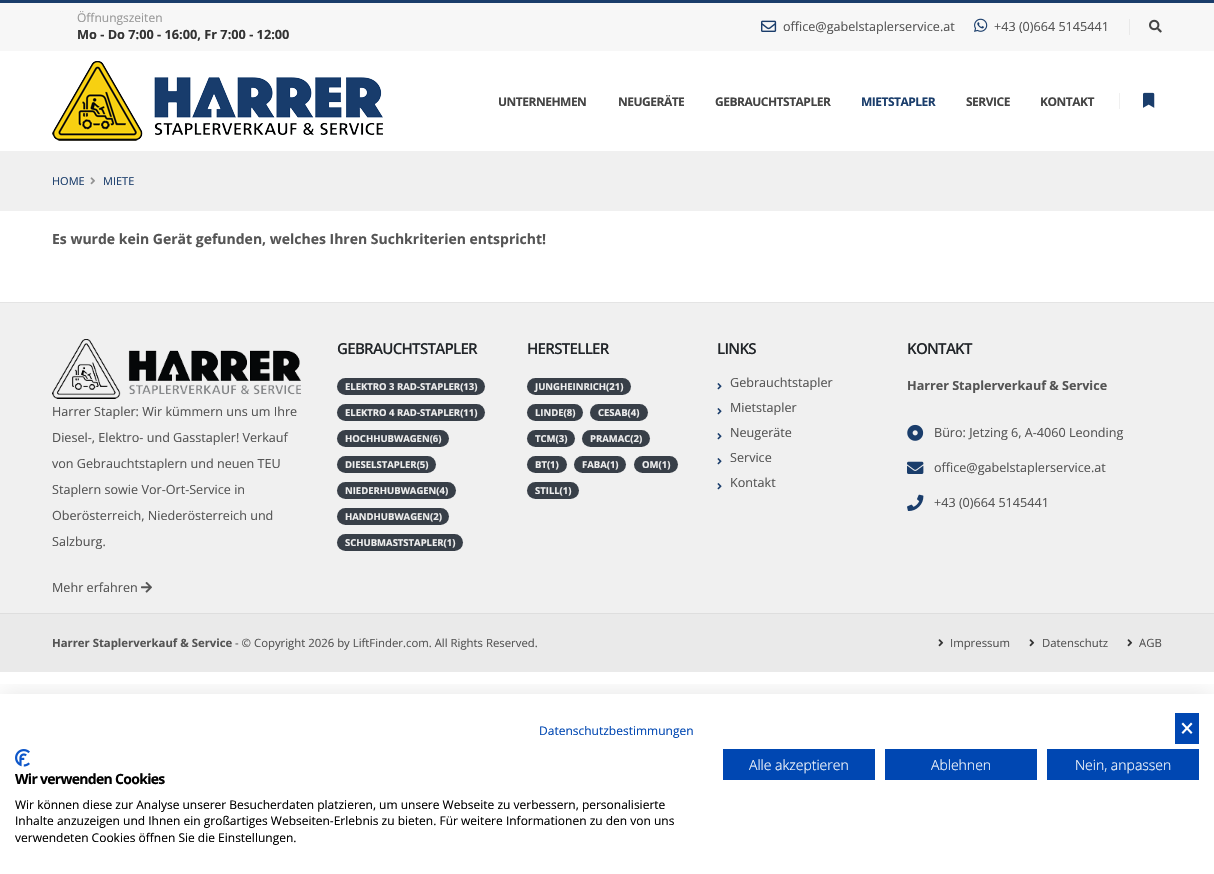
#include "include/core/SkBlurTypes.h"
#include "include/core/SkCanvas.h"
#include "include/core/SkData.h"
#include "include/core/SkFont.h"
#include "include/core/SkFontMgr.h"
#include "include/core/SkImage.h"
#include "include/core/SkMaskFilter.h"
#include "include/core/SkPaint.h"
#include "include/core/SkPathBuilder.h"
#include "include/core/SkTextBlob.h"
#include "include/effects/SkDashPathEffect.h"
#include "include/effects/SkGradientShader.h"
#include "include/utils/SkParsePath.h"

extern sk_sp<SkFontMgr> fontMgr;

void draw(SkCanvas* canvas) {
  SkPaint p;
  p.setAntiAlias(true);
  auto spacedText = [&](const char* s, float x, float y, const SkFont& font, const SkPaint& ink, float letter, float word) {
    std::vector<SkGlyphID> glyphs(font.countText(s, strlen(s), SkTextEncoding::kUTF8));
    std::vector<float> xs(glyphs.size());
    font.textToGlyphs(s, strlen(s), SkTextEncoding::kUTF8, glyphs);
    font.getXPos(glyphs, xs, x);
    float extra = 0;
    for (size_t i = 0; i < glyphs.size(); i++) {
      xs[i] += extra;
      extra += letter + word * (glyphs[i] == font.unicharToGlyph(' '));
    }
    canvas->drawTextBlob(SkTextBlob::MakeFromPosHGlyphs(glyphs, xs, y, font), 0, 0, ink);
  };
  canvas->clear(SK_ColorWHITE);
  p.setColor(SkColorSetRGB(26, 61, 107));
  canvas->drawRect(SkRect::MakeLTRB(0, 0, 1214, 3), p);
  p.setColor(SkColorSetRGB(247, 247, 247));
  canvas->drawRect(SkRect::MakeLTRB(0, 3, 1214, 51), p);
  canvas->drawImageRect(SkImages::DeferredFromEncodedData(SkData::MakeFromFileName("images/1.png")), SkRect::MakeLTRB(761, 20, 777, 32), SkSamplingOptions());
  canvas->drawImageRect(SkImages::DeferredFromEncodedData(SkData::MakeFromFileName("images/2.png")), SkRect::MakeLTRB(974, 18, 988, 32), SkSamplingOptions());
  p.setColor(SkColorSetRGB(233, 233, 233));
  canvas->drawRect(SkRect::MakeLTRB(1129, 19, 1130, 35), p);
  canvas->drawImageRect(SkImages::DeferredFromEncodedData(SkData::MakeFromFileName("images/3.png")), SkRect::MakeLTRB(1149, 19, 1162, 33), SkSamplingOptions());
  canvas->drawImageRect(SkImages::DeferredFromEncodedData(SkData::MakeFromFileName("images/4.png")), SkRect::MakeLTRB(52, 61, 383, 141), SkSamplingOptions());
  p.setColor(SkColorSetRGB(240, 240, 240));
  canvas->drawRect(SkRect::MakeLTRB(1119, 93, 1120, 109), p);
  canvas->drawImageRect(SkImages::DeferredFromEncodedData(SkData::MakeFromFileName("images/5.png")), SkRect::MakeLTRB(1143, 92, 1155, 108), SkSamplingOptions());
  canvas->drawRect(SkRect::MakeLTRB(0, 151, 1214, 211), p);
  canvas->drawImageRect(SkImages::DeferredFromEncodedData(SkData::MakeFromFileName("images/6.png")), SkRect::MakeLTRB(90, 177, 95, 185), SkSamplingOptions());
  canvas->drawRect(SkRect::MakeLTRB(0, 303, 1214, 613), p);
  p.setColor(SkColorSetRGB(228, 228, 228));
  canvas->drawRect(SkRect::MakeLTRB(0, 302, 1214, 303), p);
  canvas->drawImageRect(SkImages::DeferredFromEncodedData(SkData::MakeFromFileName("images/7.png")), SkRect::MakeLTRB(52, 339, 301, 399), SkSamplingOptions());
  canvas->drawImageRect(SkImages::DeferredFromEncodedData(SkData::MakeFromFileName("images/8.png")), SkRect::MakeLTRB(141, 582, 152, 593), SkSamplingOptions());
  p.setColor(SkColorSetRGB(56, 63, 72));
  canvas->drawRoundRect(SkRect::MakeLTRB(337, 378, 485, 395), 8.5f, 8.5f, p);
  canvas->drawRoundRect(SkRect::MakeLTRB(337, 404, 485, 421), 8.5f, 8.5f, p);
  canvas->drawRoundRect(SkRect::MakeLTRB(337, 430, 449, 447), 8.5f, 8.5f, p);
  canvas->drawRoundRect(SkRect::MakeLTRB(337, 456, 436, 473), 8.5f, 8.5f, p);
  canvas->drawRoundRect(SkRect::MakeLTRB(337, 482, 456, 499), 8.5f, 8.5f, p);
  canvas->drawRoundRect(SkRect::MakeLTRB(337, 508, 449, 525), 8.5f, 8.5f, p);
  canvas->drawRoundRect(SkRect::MakeLTRB(337, 534, 463, 551), 8.5f, 8.5f, p);
  canvas->drawRoundRect(SkRect::MakeLTRB(527, 378, 631, 395), 8.5f, 8.5f, p);
  canvas->drawRoundRect(SkRect::MakeLTRB(527, 404, 583, 421), 8.5f, 8.5f, p);
  canvas->drawRoundRect(SkRect::MakeLTRB(590, 404, 648, 421), 8.5f, 8.5f, p);
  canvas->drawRoundRect(SkRect::MakeLTRB(527, 430, 575, 447), 8.5f, 8.5f, p);
  canvas->drawRoundRect(SkRect::MakeLTRB(582, 430, 650, 447), 8.5f, 8.5f, p);
  canvas->drawRoundRect(SkRect::MakeLTRB(527, 456, 567, 473), 8.5f, 8.5f, p);
  canvas->drawRoundRect(SkRect::MakeLTRB(574, 456, 626, 473), 8.5f, 8.5f, p);
  canvas->drawRoundRect(SkRect::MakeLTRB(634, 456, 678, 473), 8.5f, 8.5f, p);
  canvas->drawRoundRect(SkRect::MakeLTRB(527, 482, 579, 499), 8.5f, 8.5f, p);
  canvas->drawImageRect(SkImages::DeferredFromEncodedData(SkData::MakeFromFileName("images/9.png")), SkRect::MakeLTRB(717, 383, 722, 390), SkSamplingOptions());
  canvas->drawImageRect(SkImages::DeferredFromEncodedData(SkData::MakeFromFileName("images/9.png")), SkRect::MakeLTRB(717, 408, 722, 415), SkSamplingOptions());
  canvas->drawImageRect(SkImages::DeferredFromEncodedData(SkData::MakeFromFileName("images/9.png")), SkRect::MakeLTRB(717, 433, 722, 440), SkSamplingOptions());
  canvas->drawImageRect(SkImages::DeferredFromEncodedData(SkData::MakeFromFileName("images/9.png")), SkRect::MakeLTRB(717, 458, 722, 465), SkSamplingOptions());
  canvas->drawImageRect(SkImages::DeferredFromEncodedData(SkData::MakeFromFileName("images/9.png")), SkRect::MakeLTRB(717, 483, 722, 490), SkSamplingOptions());
  canvas->drawImageRect(SkImages::DeferredFromEncodedData(SkData::MakeFromFileName("images/10.png")), SkRect::MakeLTRB(907, 424, 924, 441), SkSamplingOptions());
  canvas->drawImageRect(SkImages::DeferredFromEncodedData(SkData::MakeFromFileName("images/11.png")), SkRect::MakeLTRB(907, 461, 924, 474), SkSamplingOptions());
  canvas->drawImageRect(SkImages::DeferredFromEncodedData(SkData::MakeFromFileName("images/12.png")), SkRect::MakeLTRB(907, 494, 924, 511), SkSamplingOptions());
  p.setColor(SkColorSetRGB(234, 234, 234));
  canvas->drawRect(SkRect::MakeLTRB(0, 614, 1214, 672), p);
  p.setColor(SkColorSetRGB(222, 222, 222));
  canvas->drawRect(SkRect::MakeLTRB(0, 613, 1214, 614), p);
  canvas->drawImageRect(SkImages::DeferredFromEncodedData(SkData::MakeFromFileName("images/13.png")), SkRect::MakeLTRB(938, 639, 944, 647), SkSamplingOptions());
  canvas->drawImageRect(SkImages::DeferredFromEncodedData(SkData::MakeFromFileName("images/13.png")), SkRect::MakeLTRB(1029, 639, 1035, 647), SkSamplingOptions());
  canvas->drawImageRect(SkImages::DeferredFromEncodedData(SkData::MakeFromFileName("images/13.png")), SkRect::MakeLTRB(1127, 639, 1133, 647), SkSamplingOptions());
  canvas->save();
  canvas->clipRect(SkRect::MakeLTRB(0, 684, 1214, 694));
  p.setColor(SkColorSetARGB(26, 0, 0, 0));
  p.setMaskFilter(SkMaskFilter::MakeBlur(kNormal_SkBlurStyle, 12));
  canvas->drawRect(SkRect::MakeLTRB(0, 694, 1214, 874), p);
  p.setMaskFilter(nullptr);
  canvas->restore();
  p.setColor(SkColorSetRGB(0, 71, 178));
  canvas->drawRect(SkRect::MakeLTRB(1175, 713, 1199, 744), p);
  p.setColor(SK_ColorWHITE);
  canvas->drawPath(SkPathBuilder().moveTo(1191, 722.5f).lineTo(1192.5f, 724).lineTo(1183, 734).lineTo(1181.5f, 732.5f).close().detach(), p);
  canvas->drawPath(SkPathBuilder().moveTo(1181.5f, 724).lineTo(1183, 722.5f).lineTo(1192.5f, 732.5f).lineTo(1191, 734).close().detach(), p);
  p.setColor(SkColorSetRGB(0, 71, 178));
  canvas->drawRect(SkRect::MakeLTRB(723, 749, 875, 780), p);
  canvas->drawRect(SkRect::MakeLTRB(885, 749, 1037, 780), p);
  canvas->drawRect(SkRect::MakeLTRB(1047, 749, 1199, 780), p);
  canvas->drawImageRect(SkImages::DeferredFromEncodedData(SkData::MakeFromFileName("images/14.png")), SkRect::MakeLTRB(15, 749, 30, 767), SkSamplingOptions());
  SkFont font1(fontMgr->matchFamilyStyle("Open Sans", SkFontStyle::Normal()), 12);
  font1.setSubpixel(true);
  p.setColor(SkColorSetRGB(153, 153, 153));
  canvas->drawString("Öffnungszeiten", 77, 22, font1, p);
  SkFont font2(fontMgr->matchFamilyStyle("Open Sans", SkFontStyle::Bold()), 12.75f);
  font2.setSubpixel(true);
  p.setColor(SkColorSetRGB(51, 51, 51));
  canvas->drawString("Mo - Do 7:00 - 16:00, Fr 7:00 - 12:00", 77, 39, font2, p);
  SkFont font3(fontMgr->matchFamilyStyle("Open Sans", SkFontStyle::Normal()), 12.6f);
  font3.setSubpixel(true);
  p.setColor(SkColorSetRGB(85, 85, 85));
  canvas->drawString("office@gabelstaplerservice.at", 783, 31, font3, p);
  canvas->drawString("+43 (0)664 5145441", 994, 31, font3, p);
  SkFont font4(fontMgr->matchFamilyStyle("Open Sans", SkFontStyle::Bold()), 12);
  font4.setSubpixel(true);
  p.setColor(SkColorSetRGB(68, 68, 68));
  spacedText("UNTERNEHMEN", 498, 106, font4, p, -0.5f, 0);
  spacedText("NEUGERÄTE", 618, 106, font4, p, -0.5f, 0);
  spacedText("GEBRAUCHTSTAPLER", 715, 106, font4, p, -0.5f, 0);
  p.setColor(SkColorSetRGB(26, 61, 107));
  spacedText("MIETSTAPLER", 861, 106, font4, p, -0.5f, 0);
  p.setColor(SkColorSetRGB(68, 68, 68));
  spacedText("SERVICE", 966, 106, font4, p, -0.5f, 0);
  spacedText("KONTAKT", 1040, 106, font4, p, -0.5f, 0);
  SkFont font5(fontMgr->matchFamilyStyle("Open Sans", SkFontStyle::Normal()), 11);
  font5.setSubpixel(true);
  p.setColor(SkColorSetRGB(26, 61, 107));
  canvas->drawString("HOME", 52, 185, font5, p);
  canvas->drawString("MIETE", 103, 185, font5, p);
  SkFont font6(fontMgr->matchFamilyStyle("Open Sans", SkFontStyle::Bold()), 14);
  font6.setSubpixel(true);
  p.setColor(SkColorSetRGB(85, 85, 85));
  canvas->drawString("Es wurde kein Gerät gefunden, welches Ihren Suchkriterien entspricht!", 52, 244, font6, p);
  canvas->drawString("Harrer Stapler: Wir kümmern uns um Ihre", 52, 416, font3, p);
  canvas->drawString("Diesel-, Elektro- und Gasstapler! Verkauf", 52, 442, font3, p);
  canvas->drawString("von Gebrauchtstaplern und neuen TEU", 52, 468, font3, p);
  canvas->drawString("Staplern sowie Vor-Ort-Service in", 52, 494, font3, p);
  canvas->drawString("Oberösterreich, Niederösterreich und", 52, 520, font3, p);
  canvas->drawString("Salzburg.", 52, 546, font3, p);
  canvas->drawString("Mehr erfahren", 52, 592, font3, p);
  SkFont font7(fontMgr->matchFamilyStyle("Open Sans", SkFontStyle(600, SkFontStyle::kNormal_Width, SkFontStyle::kUpright_Slant)), 15.1f);
  font7.setSubpixel(true);
  p.setColor(SkColorSetRGB(33, 37, 41));
  spacedText("GEBRAUCHTSTAPLER", 337, 354, font7, p, -0.75f, 0);
  SkFont font8(fontMgr->matchFamilyStyle("Open Sans", SkFontStyle::Bold()), 9.5f);
  font8.setSubpixel(true);
  p.setColor(SkColorSetRGB(238, 238, 238));
  canvas->drawString("ELEKTRO 3 RAD-STAPLER(13)", 345, 390, font8, p);
  canvas->drawString("ELEKTRO 4 RAD-STAPLER(11)", 345, 416, font8, p);
  canvas->drawString("HOCHHUBWAGEN(6)", 345, 442, font8, p);
  canvas->drawString("DIESELSTAPLER(5)", 345, 468, font8, p);
  canvas->drawString("NIEDERHUBWAGEN(4)", 345, 494, font8, p);
  canvas->drawString("HANDHUBWAGEN(2)", 345, 520, font8, p);
  canvas->drawString("SCHUBMASTSTAPLER(1)", 345, 546, font8, p);
  p.setColor(SkColorSetRGB(33, 37, 41));
  spacedText("HERSTELLER", 527, 354, font7, p, -0.75f, 0);
  p.setColor(SkColorSetRGB(238, 238, 238));
  canvas->drawString("JUNGHEINRICH(21)", 535, 390, font8, p);
  canvas->drawString("LINDE(8)", 535, 416, font8, p);
  canvas->drawString("CESAB(4)", 598, 416, font8, p);
  canvas->drawString("TCM(3)", 535, 442, font8, p);
  canvas->drawString("PRAMAC(2)", 590, 442, font8, p);
  canvas->drawString("BT(1)", 535, 468, font8, p);
  canvas->drawString("FABA(1)", 582, 468, font8, p);
  canvas->drawString("OM(1)", 642, 468, font8, p);
  canvas->drawString("STILL(1)", 535, 494, font8, p);
  p.setColor(SkColorSetRGB(33, 37, 41));
  spacedText("LINKS", 717, 354, font7, p, -0.75f, 0);
  p.setColor(SkColorSetRGB(85, 85, 85));
  canvas->drawString("Gebrauchtstapler", 730, 387, font3, p);
  canvas->drawString("Mietstapler", 730, 412, font3, p);
  canvas->drawString("Neugeräte", 730, 437, font3, p);
  canvas->drawString("Service", 730, 462, font3, p);
  canvas->drawString("Kontakt", 730, 487, font3, p);
  p.setColor(SkColorSetRGB(33, 37, 41));
  spacedText("KONTAKT", 907, 354, font7, p, -0.75f, 0);
  SkFont font9(fontMgr->matchFamilyStyle("Open Sans", SkFontStyle::Bold()), 12.6f);
  font9.setSubpixel(true);
  p.setColor(SkColorSetRGB(85, 85, 85));
  canvas->drawString("Harrer Staplerverkauf & Service", 907, 390, font9, p);
  canvas->drawString("Büro: Jetzing 6, A-4060 Leonding", 934, 437, font3, p);
  canvas->drawString("office@gabelstaplerservice.at", 934, 472, font3, p);
  canvas->drawString("+43 (0)664 5145441", 934, 507, font3, p);
  SkFont font10(fontMgr->matchFamilyStyle("Open Sans", SkFontStyle::Bold()), 11.35f);
  font10.setSubpixel(true);
  canvas->drawString("Harrer Staplerverkauf & Service", 52, 647, font10, p);
  SkFont font11(fontMgr->matchFamilyStyle("Open Sans", SkFontStyle::Normal()), 11.35f);
  font11.setSubpixel(true);
  canvas->drawString("- © Copyright 2026 by LiftFinder.com. All Rights Reserved.", 235, 647, font11, p);
  canvas->drawString("Impressum", 950, 647, font11, p);
  canvas->drawString("Datenschutz", 1042, 647, font11, p);
  canvas->drawString("AGB", 1139, 647, font11, p);
  p.setColor(SkColorSetRGB(0, 71, 178));
  canvas->drawString("Datenschutzbestimmungen", 539, 735, font1, p);
  SkFont font12(fontMgr->matchFamilyStyle("Open Sans", SkFontStyle(300, SkFontStyle::kNormal_Width, SkFontStyle::kUpright_Slant)), 14);
  font12.setSubpixel(true);
  p.setColor(SK_ColorWHITE);
  canvas->drawString("Alle akzeptieren", 749, 770, font12, p);
  canvas->drawString("Ablehnen", 931, 770, font12, p);
  canvas->drawString("Nein, anpassen", 1075, 770, font12, p);
  p.setColor(SK_ColorBLACK);
  spacedText("Wir verwenden Cookies", 15, 784, font6, p, -0.7f, 0);
  canvas->drawString("Wir können diese zur Analyse unserer Besucherdaten platzieren, um unsere Webseite zu verbessern, personalisierte", 15, 809, font1, p);
  canvas->drawString("Inhalte anzuzeigen und Ihnen ein großartiges Webseiten-Erlebnis zu bieten. Für weitere Informationen zu den von uns", 15, 825, font1, p);
  canvas->drawString("verwendeten Cookies öffnen Sie die Einstellungen.", 15, 842, font1, p);
}
